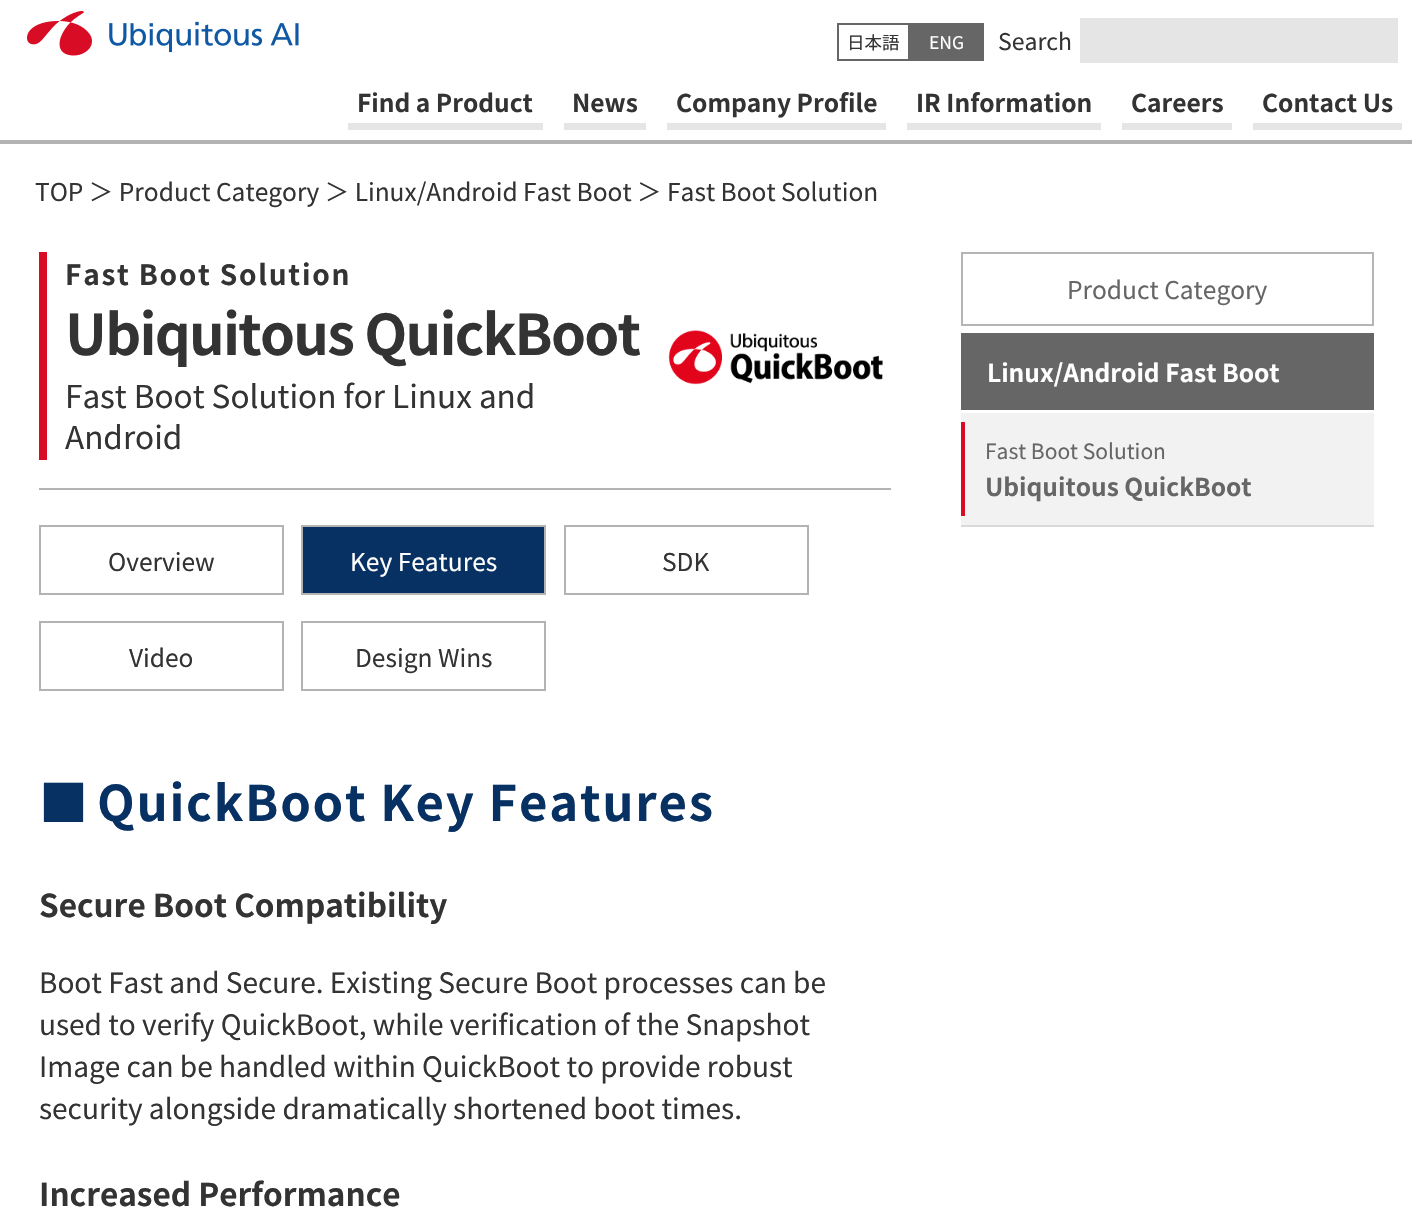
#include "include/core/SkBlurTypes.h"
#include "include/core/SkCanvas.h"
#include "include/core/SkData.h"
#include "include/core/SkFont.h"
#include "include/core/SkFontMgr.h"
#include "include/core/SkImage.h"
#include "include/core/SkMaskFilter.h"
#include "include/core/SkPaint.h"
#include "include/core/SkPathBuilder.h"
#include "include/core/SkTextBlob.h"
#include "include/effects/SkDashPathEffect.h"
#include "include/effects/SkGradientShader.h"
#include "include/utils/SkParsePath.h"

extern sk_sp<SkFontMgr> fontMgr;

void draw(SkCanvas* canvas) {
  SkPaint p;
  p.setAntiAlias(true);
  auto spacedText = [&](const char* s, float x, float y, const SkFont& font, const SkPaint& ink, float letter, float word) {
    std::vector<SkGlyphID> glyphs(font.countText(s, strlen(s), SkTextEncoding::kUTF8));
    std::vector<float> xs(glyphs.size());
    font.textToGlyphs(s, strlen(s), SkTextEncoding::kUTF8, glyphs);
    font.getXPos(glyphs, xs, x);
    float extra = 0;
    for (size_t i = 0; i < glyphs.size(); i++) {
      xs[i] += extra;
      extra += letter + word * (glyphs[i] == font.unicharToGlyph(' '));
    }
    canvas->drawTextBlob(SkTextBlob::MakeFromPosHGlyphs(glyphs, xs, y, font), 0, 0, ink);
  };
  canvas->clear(SK_ColorWHITE);
  p.setColor(SkColorSetRGB(179, 179, 179));
  canvas->drawRect(SkRect::MakeLTRB(0, 140, 1412, 144), p);
  canvas->drawImageRect(SkImages::DeferredFromEncodedData(SkData::MakeFromFileName("images/1.png")), SkRect::MakeLTRB(27, 11, 299, 56), SkSamplingOptions());
  p.setStyle(SkPaint::kStroke_Style);
  p.setStrokeWidth(2);
  p.setColor(SkColorSetRGB(102, 102, 102));
  canvas->drawRect(SkRect::MakeLTRB(838, 24, 909, 60), p);
  p.setStyle(SkPaint::kFill_Style);
  canvas->drawRect(SkRect::MakeLTRB(910, 23, 984, 61), p);
  p.setColor(SkColorSetRGB(230, 229, 229));
  canvas->drawRect(SkRect::MakeLTRB(1080, 18, 1398, 63), p);
  canvas->drawRect(SkRect::MakeLTRB(348, 123, 543, 130), p);
  canvas->drawRect(SkRect::MakeLTRB(564, 123, 646, 130), p);
  canvas->drawRect(SkRect::MakeLTRB(667, 123, 886, 130), p);
  canvas->drawRect(SkRect::MakeLTRB(907, 123, 1101, 130), p);
  canvas->drawRect(SkRect::MakeLTRB(1122, 123, 1232, 130), p);
  canvas->drawRect(SkRect::MakeLTRB(1253, 123, 1402, 130), p);
  p.setColor(SkColorSetRGB(179, 179, 179));
  canvas->drawRect(SkRect::MakeLTRB(39, 488, 891, 490), p);
  p.setColor(SkColorSetRGB(216, 12, 36));
  canvas->drawRect(SkRect::MakeLTRB(39, 252, 47, 460), p);
  canvas->drawImageRect(SkImages::DeferredFromEncodedData(SkData::MakeFromFileName("images/2.png")), SkRect::MakeLTRB(668, 330, 883, 385), SkSamplingOptions());
  p.setStyle(SkPaint::kStroke_Style);
  p.setColor(SkColorSetRGB(179, 179, 179));
  canvas->drawRect(SkRect::MakeLTRB(40, 526, 283, 594), p);
  p.setStyle(SkPaint::kFill_Style);
  p.setColor(SkColorSetRGB(8, 49, 99));
  canvas->drawRect(SkRect::MakeLTRB(302, 526, 545, 594), p);
  p.setStyle(SkPaint::kStroke_Style);
  p.setColor(SkColorSetRGB(179, 179, 179));
  canvas->drawRect(SkRect::MakeLTRB(302, 526, 545, 594), p);
  canvas->drawRect(SkRect::MakeLTRB(565, 526, 808, 594), p);
  canvas->drawRect(SkRect::MakeLTRB(40, 622, 283, 690), p);
  canvas->drawRect(SkRect::MakeLTRB(302, 622, 545, 690), p);
  p.setColor(SkColorSetRGB(181, 181, 181));
  canvas->drawRect(SkRect::MakeLTRB(962, 253, 1373, 325), p);
  p.setStyle(SkPaint::kFill_Style);
  p.setColor(SkColorSetRGB(102, 102, 102));
  canvas->drawRect(SkRect::MakeLTRB(961, 333, 1374, 410), p);
  p.setColor(SkColorSetRGB(242, 242, 242));
  canvas->drawRect(SkRect::MakeLTRB(961, 413, 1374, 525), p);
  p.setColor(SkColorSetRGB(217, 217, 217));
  canvas->drawRect(SkRect::MakeLTRB(961, 525, 1374, 527), p);
  p.setColor(SkColorSetRGB(216, 12, 36));
  canvas->drawRect(SkRect::MakeLTRB(961, 422, 965, 516), p);
  SkFont font1(fontMgr->matchFamilyStyle("Noto Sans JP", SkFontStyle::Normal()), 17.5f);
  font1.setSubpixel(true);
  p.setColor(SkColorSetRGB(51, 51, 51));
  canvas->drawString("日本語", 847, 49, font1, p);
  p.setColor(SK_ColorWHITE);
  canvas->drawString("ENG", 929, 49, font1, p);
  SkFont font2(fontMgr->matchFamilyStyle("Noto Sans JP", SkFontStyle::Normal()), 23);
  font2.setSubpixel(true);
  p.setColor(SkColorSetRGB(51, 51, 51));
  canvas->drawString("Search", 998, 50, font2, p);
  SkFont font3(fontMgr->matchFamilyStyle("Noto Sans JP", SkFontStyle::Bold()), 24.5f);
  font3.setSubpixel(true);
  canvas->drawString("Find a Product", 357, 112, font3, p);
  canvas->drawString("News", 572, 112, font3, p);
  canvas->drawString("Company Profile", 676, 112, font3, p);
  canvas->drawString("IR Information", 916, 112, font3, p);
  canvas->drawString("Careers", 1131, 112, font3, p);
  canvas->drawString("Contact Us", 1262, 112, font3, p);
  SkFont font4(fontMgr->matchFamilyStyle("Noto Sans JP", SkFontStyle::Normal()), 24.5f);
  font4.setSubpixel(true);
  canvas->drawString("TOP ＞ Product Category ＞ Linux/Android Fast Boot ＞ Fast Boot Solution", 35, 201, font4, p);
  SkFont font5(fontMgr->matchFamilyStyle("Noto Sans JP", SkFontStyle::Bold()), 28);
  font5.setSubpixel(true);
  spacedText("Fast Boot Solution", 65, 285, font5, p, 1.75f, 0);
  SkFont font6(fontMgr->matchFamilyStyle("Noto Sans JP", SkFontStyle::Bold()), 56);
  font6.setSubpixel(true);
  spacedText("Ubiquitous QuickBoot", 65, 355, font6, p, -1.75f, 0);
  SkFont font7(fontMgr->matchFamilyStyle("Noto Sans JP", SkFontStyle::Normal()), 31.5f);
  font7.setSubpixel(true);
  canvas->drawString("Fast Boot Solution for Linux and", 65, 408, font7, p);
  canvas->drawString("Android", 65, 449, font7, p);
  canvas->drawString("Overview", 108, 571, font4, p);
  p.setColor(SK_ColorWHITE);
  canvas->drawString("Key Features", 350, 571, font4, p);
  p.setColor(SkColorSetRGB(51, 51, 51));
  canvas->drawString("SDK", 662, 571, font4, p);
  canvas->drawString("Video", 129, 667, font4, p);
  canvas->drawString("Design Wins", 355, 667, font4, p);
  SkFont font8(fontMgr->matchFamilyStyle("Noto Sans JP", SkFontStyle::Bold()), 49);
  font8.setSubpixel(true);
  p.setColor(SkColorSetRGB(8, 49, 99));
  spacedText("■", 39, 821, font8, p, 1.75f, 0);
  spacedText("QuickBoot Key Features", 97, 821, font8, p, 1.75f, 0);
  SkFont font9(fontMgr->matchFamilyStyle("Noto Sans JP", SkFontStyle::Bold()), 31.5f);
  font9.setSubpixel(true);
  p.setColor(SkColorSetRGB(51, 51, 51));
  canvas->drawString("Secure Boot Compatibility", 39, 917, font9, p);
  SkFont font10(fontMgr->matchFamilyStyle("Noto Sans JP", SkFontStyle::Normal()), 28);
  font10.setSubpixel(true);
  canvas->drawString("Boot Fast and Secure. Existing Secure Boot processes can be", 39, 993, font10, p);
  canvas->drawString("used to verify QuickBoot, while verification of the Snapshot", 39, 1035, font10, p);
  canvas->drawString("Image can be handled within QuickBoot to provide robust", 39, 1077, font10, p);
  canvas->drawString("security alongside dramatically shortened boot times.", 39, 1119, font10, p);
  canvas->drawString("Increased Performance", 39, 1206, font9, p);
  p.setColor(SkColorSetRGB(102, 102, 102));
  canvas->drawString("Product Category", 1067, 299, font4, p);
  p.setColor(SK_ColorWHITE);
  canvas->drawString("Linux/Android Fast Boot", 987, 382, font3, p);
  SkFont font11(fontMgr->matchFamilyStyle("Noto Sans JP", SkFontStyle::Normal()), 21);
  font11.setSubpixel(true);
  p.setColor(SkColorSetRGB(102, 102, 102));
  canvas->drawString("Fast Boot Solution", 985, 459, font11, p);
  canvas->drawString("Ubiquitous QuickBoot", 985, 496, font3, p);
}
